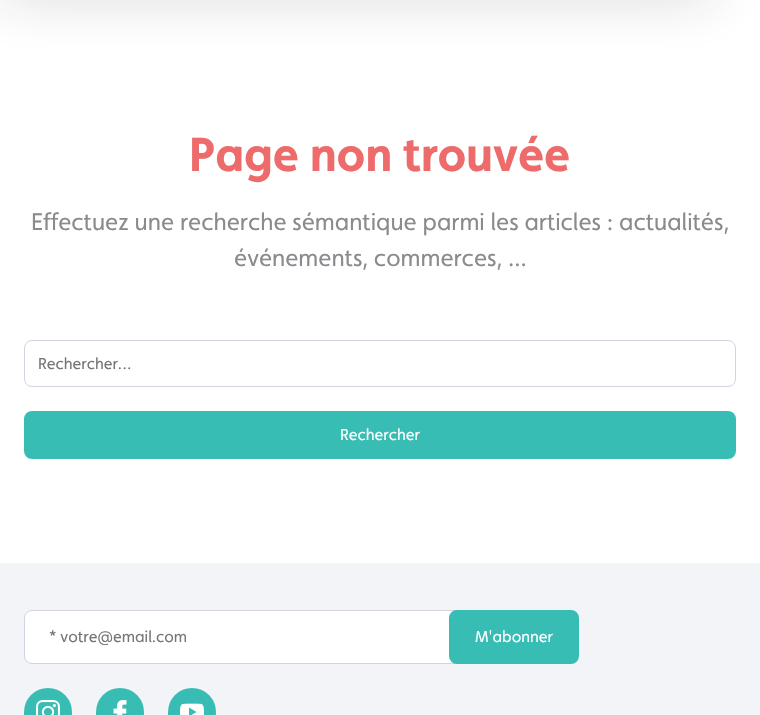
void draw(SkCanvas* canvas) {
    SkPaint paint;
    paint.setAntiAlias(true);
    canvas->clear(0xFFFFFFFF);
    paint.setColor(0x331D1D1E);
    paint.setMaskFilter(SkMaskFilter::MakeBlur(kNormal_SkBlurStyle, 30));
    canvas->drawRect(SkRect::MakeXYWH(0, -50, 712, 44), paint);
    paint.setMaskFilter(nullptr);
    SkFont font1(fontMgr->matchFamilyStyle("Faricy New", SkFontStyle::Bold()), 48);
    font1.setSubpixel(true);
    paint.setColor(0xFFED6B6A);
    canvas->drawString("Page non trouvée", 189, 171, font1, paint);
    SkFont font2(fontMgr->matchFamilyStyle("Faricy New", SkFontStyle::Normal()), 24);
    font2.setSubpixel(true);
    paint.setColor(0xFF8A8A8F);
    canvas->drawString("Effectuez une recherche sémantique parmi les articles : actualités,", 31, 230, font2, paint);
    canvas->drawString("événements, commerces, ...", 234, 266, font2, paint);
    paint.setStyle(SkPaint::kStroke_Style);
    paint.setStrokeWidth(1);
    paint.setColor(0xFFD2D4E0);
    canvas->drawRoundRect(SkRect::MakeXYWH(24.5f, 340.5f, 711, 46), 7.5f, 7.5f, paint);
    SkFont font3(fontMgr->matchFamilyStyle("Faricy New", SkFontStyle::Normal()), 16);
    font3.setSubpixel(true);
    paint.setStyle(SkPaint::kFill_Style);
    paint.setColor(0xFF757575);
    canvas->drawString("Rechercher…", 38, 369, font3, paint);
    paint.setColor(0xFF37BDB3);
    canvas->drawRoundRect(SkRect::MakeXYWH(25, 412, 710, 46), 7, 7, paint);
    paint.setStyle(SkPaint::kStroke_Style);
    paint.setStrokeWidth(2);
    canvas->drawRoundRect(SkRect::MakeXYWH(25, 412, 710, 46), 7, 7, paint);
    paint.setStyle(SkPaint::kFill_Style);
    paint.setColor(0xFFFFFFFF);
    canvas->drawString("Rechercher", 340, 440, font3, paint);
    paint.setColor(0xFFF3F4F8);
    canvas->drawRect(SkRect::MakeXYWH(0, 563, 760, 152), paint);
    paint.setColor(0xFFFFFFFF);
    canvas->drawRoundRect(SkRect::MakeXYWH(24.5f, 610.5f, 449, 53), 7.5f, 7.5f, paint);
    paint.setStyle(SkPaint::kStroke_Style);
    paint.setStrokeWidth(1);
    paint.setColor(0xFFD2D4E0);
    canvas->drawRoundRect(SkRect::MakeXYWH(24.5f, 610.5f, 449, 53), 7.5f, 7.5f, paint);
    paint.setStyle(SkPaint::kFill_Style);
    paint.setColor(0xFF757575);
    canvas->drawString("* votre@email.com", 49, 642, font3, paint);
    paint.setColor(0xFF37BDB3);
    canvas->drawRoundRect(SkRect::MakeXYWH(450, 611, 128, 52), 7, 7, paint);
    paint.setStyle(SkPaint::kStroke_Style);
    paint.setStrokeWidth(2);
    canvas->drawRoundRect(SkRect::MakeXYWH(450, 611, 128, 52), 7, 7, paint);
    paint.setStyle(SkPaint::kFill_Style);
    paint.setColor(0xFFFFFFFF);
    canvas->drawString("M'abonner", 475, 642, font3, paint);
    paint.setColor(0xFF37BDB3);
    canvas->drawCircle(48, 712, 24, paint);
    canvas->drawImageRect(SkImages::DeferredFromEncodedData(SkData::MakeFromFileName("img1.png")), SkRect::MakeXYWH(36, 700, 24, 15), SkSamplingOptions());
    canvas->drawCircle(120, 712, 24, paint);
    canvas->drawImageRect(SkImages::DeferredFromEncodedData(SkData::MakeFromFileName("img2.png")), SkRect::MakeXYWH(113, 700, 14, 15), SkSamplingOptions());
    canvas->drawCircle(192, 712, 24, paint);
    canvas->drawImageRect(SkImages::DeferredFromEncodedData(SkData::MakeFromFileName("img3.png")), SkRect::MakeXYWH(180, 703, 24, 12), SkSamplingOptions());
}
